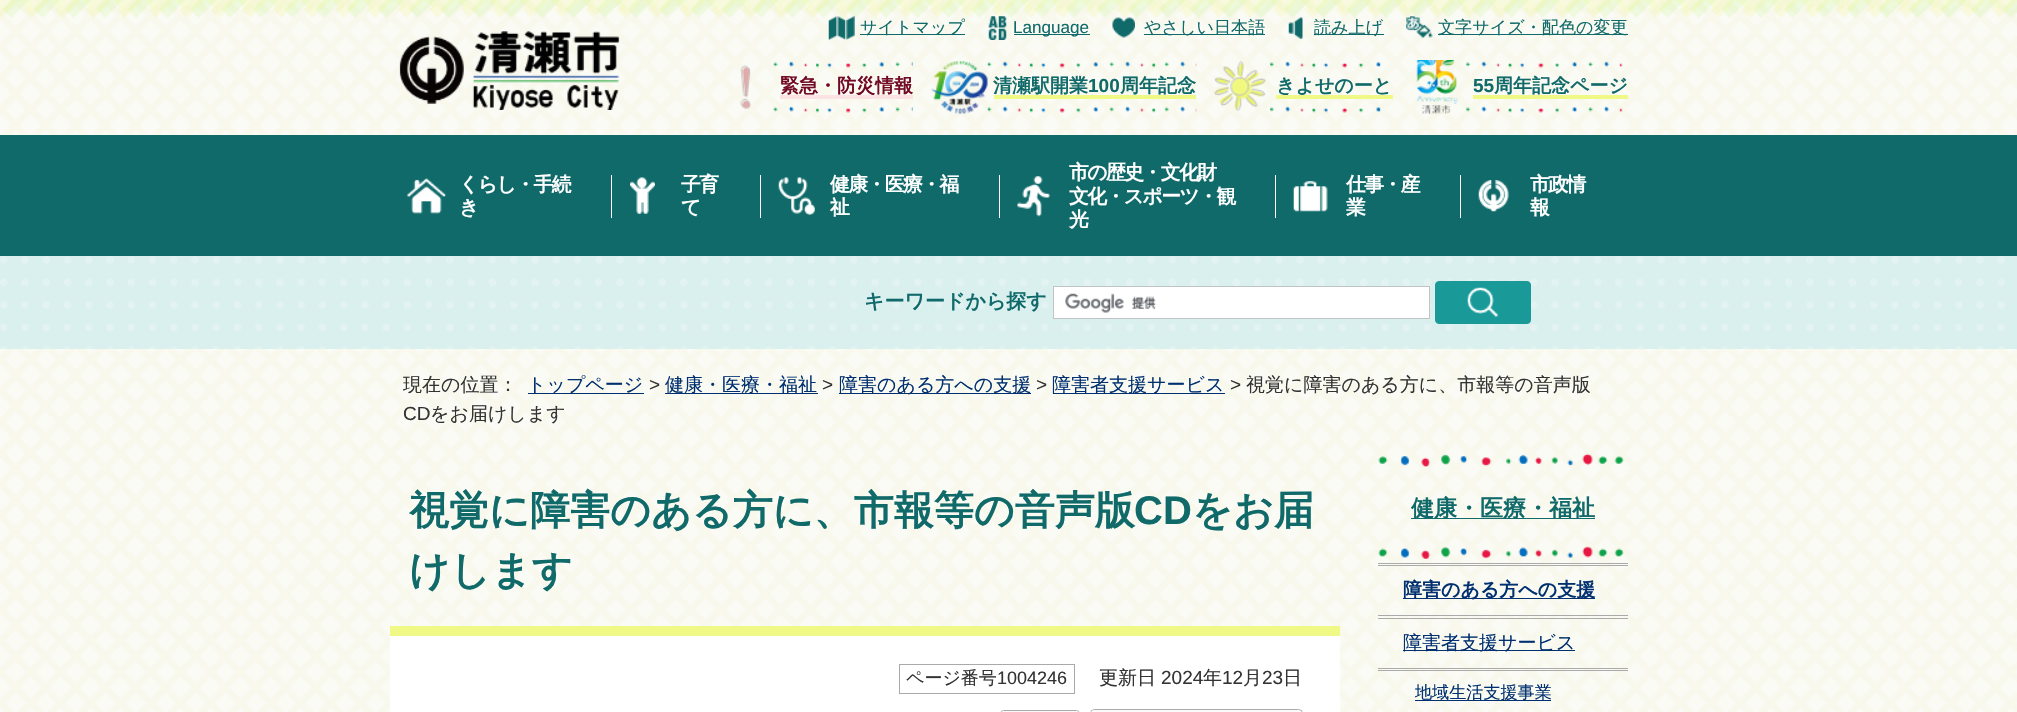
void draw(SkCanvas* canvas) {
    SkPaint paint;
    paint.setAntiAlias(true);
    auto spacedText = [&](const char* s, float x, float y, const SkFont& font, const SkPaint& ink, float letter, float word) {
        std::vector<SkGlyphID> glyphs(font.countText(s, strlen(s), SkTextEncoding::kUTF8));
        std::vector<float> xs(glyphs.size());
        font.textToGlyphs(s, strlen(s), SkTextEncoding::kUTF8, glyphs);
        font.getXPos(glyphs, xs, x);
        float extra = 0;
        for (size_t i = 0; i < glyphs.size(); i++) {
            xs[i] += extra;
            extra += letter + word * (glyphs[i] == font.unicharToGlyph(' '));
        }
        canvas->drawTextBlob(SkTextBlob::MakeFromPosHGlyphs(glyphs, xs, y, font), 0, 0, ink);
    };
    canvas->clear(0xFFFFFFFF);
    canvas->drawImageRect(SkImages::DeferredFromEncodedData(SkData::MakeFromFileName("img1.png")), SkRect::MakeXYWH(0, 0, 2017, 712), SkSamplingOptions());
    canvas->drawImageRect(SkImages::DeferredFromEncodedData(SkData::MakeFromFileName("img2.png")), SkRect::MakeXYWH(0, 0, 2017, 18), SkSamplingOptions());
    canvas->drawImageRect(SkImages::DeferredFromEncodedData(SkData::MakeFromFileName("img3.png")), SkRect::MakeXYWH(399, 31, 221, 79), SkSamplingOptions());
    canvas->drawImageRect(SkImages::DeferredFromEncodedData(SkData::MakeFromFileName("img4.png")), SkRect::MakeXYWH(828, 16, 27, 24), SkSamplingOptions());
    paint.setColor(0xFF116A6A);
    canvas->drawRect(SkRect::MakeXYWH(860, 34, 105, 1), paint);
    SkFont font1(fontMgr->matchFamilyStyle("WenQuanYi Zen Hei", SkFontStyle(500, SkFontStyle::kNormal_Width, SkFontStyle::kUpright_Slant)), 17.1f);
    font1.setSubpixel(true);
    canvas->drawString("サイトマップ", 860, 33, font1, paint);
    canvas->drawImageRect(SkImages::DeferredFromEncodedData(SkData::MakeFromFileName("img5.png")), SkRect::MakeXYWH(988, 16, 19, 24), SkSamplingOptions());
    canvas->drawRect(SkRect::MakeXYWH(1014, 34, 76, 1), paint);
    SkFont font2(fontMgr->matchFamilyStyle("Liberation Sans", SkFontStyle::Normal()), 17.1f);
    font2.setSubpixel(true);
    canvas->drawString("Language", 1013, 33, font2, paint);
    canvas->drawImageRect(SkImages::DeferredFromEncodedData(SkData::MakeFromFileName("img6.png")), SkRect::MakeXYWH(1112, 17, 23, 21), SkSamplingOptions());
    canvas->drawRect(SkRect::MakeXYWH(1144, 34, 121, 1), paint);
    canvas->drawString("やさしい日本語", 1144, 33, font1, paint);
    canvas->drawImageRect(SkImages::DeferredFromEncodedData(SkData::MakeFromFileName("img7.png")), SkRect::MakeXYWH(1288, 17, 15, 22), SkSamplingOptions());
    canvas->drawRect(SkRect::MakeXYWH(1314, 34, 70, 1), paint);
    canvas->drawString("読み上げ", 1314, 33, font1, paint);
    canvas->drawImageRect(SkImages::DeferredFromEncodedData(SkData::MakeFromFileName("img8.png")), SkRect::MakeXYWH(1406, 16, 27, 22), SkSamplingOptions());
    canvas->drawRect(SkRect::MakeXYWH(1438, 34, 190, 1), paint);
    canvas->drawString("文字サイズ・配色の変更", 1438, 33, font1, paint);
    canvas->drawImageRect(SkImages::DeferredFromEncodedData(SkData::MakeFromFileName("img9.png")), SkRect::MakeXYWH(740, 65, 12, 44), SkSamplingOptions());
    canvas->drawImageRect(SkImages::DeferredFromEncodedData(SkData::MakeFromFileName("img10.png")), SkRect::MakeXYWH(773, 61, 140, 7), SkSamplingOptions());
    SkFont font3(fontMgr->matchFamilyStyle("WenQuanYi Zen Hei", SkFontStyle::Bold()), 19);
    font3.setSubpixel(true);
    paint.setColor(0xFF720A26);
    canvas->drawString("緊急・防災情報", 780, 92, font3, paint);
    paint.setColor(0xFFFAE3E2);
    canvas->drawRect(SkRect::MakeXYWH(780, 95, 133, 4), paint);
    canvas->drawImageRect(SkImages::DeferredFromEncodedData(SkData::MakeFromFileName("img11.png")), SkRect::MakeXYWH(773, 106, 140, 7), SkSamplingOptions());
    canvas->drawImageRect(SkImages::DeferredFromEncodedData(SkData::MakeFromFileName("img12.png")), SkRect::MakeXYWH(931, 61, 57, 53), SkSamplingOptions());
    canvas->drawImageRect(SkImages::DeferredFromEncodedData(SkData::MakeFromFileName("img13.png")), SkRect::MakeXYWH(987, 61, 210, 7), SkSamplingOptions());
    paint.setColor(0xFF116A6A);
    canvas->drawString("清瀬駅開業", 993, 92, font3, paint);
    SkFont font4(fontMgr->matchFamilyStyle("Liberation Sans", SkFontStyle::Bold()), 19);
    font4.setSubpixel(true);
    canvas->drawString("100", 1088, 92, font4, paint);
    canvas->drawString("周年記念", 1120, 92, font3, paint);
    paint.setColor(0xFFF1F986);
    canvas->drawRect(SkRect::MakeXYWH(994, 95, 202, 4), paint);
    canvas->drawImageRect(SkImages::DeferredFromEncodedData(SkData::MakeFromFileName("img14.png")), SkRect::MakeXYWH(987, 106, 210, 7), SkSamplingOptions());
    canvas->drawImageRect(SkImages::DeferredFromEncodedData(SkData::MakeFromFileName("img15.png")), SkRect::MakeXYWH(1213, 61, 53, 51), SkSamplingOptions());
    canvas->drawImageRect(SkImages::DeferredFromEncodedData(SkData::MakeFromFileName("img16.png")), SkRect::MakeXYWH(1270, 61, 111, 7), SkSamplingOptions());
    paint.setColor(0xFF116A6A);
    canvas->drawString("きよせのーと", 1276, 92, font3, paint);
    paint.setColor(0xFFF1F986);
    canvas->drawRect(SkRect::MakeXYWH(1276, 95, 117, 4), paint);
    canvas->drawImageRect(SkImages::DeferredFromEncodedData(SkData::MakeFromFileName("img17.png")), SkRect::MakeXYWH(1270, 106, 111, 7), SkSamplingOptions());
    canvas->drawImageRect(SkImages::DeferredFromEncodedData(SkData::MakeFromFileName("img18.png")), SkRect::MakeXYWH(1416, 60, 42, 54), SkSamplingOptions());
    canvas->drawImageRect(SkImages::DeferredFromEncodedData(SkData::MakeFromFileName("img19.png")), SkRect::MakeXYWH(1466, 61, 157, 7), SkSamplingOptions());
    paint.setColor(0xFF116A6A);
    canvas->drawString("55", 1473, 92, font4, paint);
    canvas->drawString("周年記念ページ", 1494, 92, font3, paint);
    paint.setColor(0xFFF1F986);
    canvas->drawRect(SkRect::MakeXYWH(1473, 95, 155, 4), paint);
    canvas->drawImageRect(SkImages::DeferredFromEncodedData(SkData::MakeFromFileName("img20.png")), SkRect::MakeXYWH(1466, 106, 157, 7), SkSamplingOptions());
    paint.setColor(0xFF116A6A);
    canvas->drawRect(SkRect::MakeXYWH(0, 135, 2017, 121), paint);
    canvas->drawImageRect(SkImages::DeferredFromEncodedData(SkData::MakeFromFileName("img21.png")), SkRect::MakeXYWH(407, 178, 40, 36), SkSamplingOptions());
    SkFont font5(fontMgr->matchFamilyStyle("WenQuanYi Zen Hei", SkFontStyle::Bold()), 19.75f);
    font5.setSubpixel(true);
    paint.setColor(0xFFFFFFFF);
    spacedText("くらし・手続", 459, 191, font5, paint, -1.5f, 0);
    canvas->drawRect(SkRect::MakeXYWH(611, 175, 1, 43), paint);
    spacedText("き", 459, 214, font5, paint, -1.5f, 0);
    canvas->drawImageRect(SkImages::DeferredFromEncodedData(SkData::MakeFromFileName("img22.png")), SkRect::MakeXYWH(630, 177, 25, 37), SkSamplingOptions());
    spacedText("子育", 681, 191, font5, paint, -1.5f, 0);
    canvas->drawRect(SkRect::MakeXYWH(760, 175, 1, 43), paint);
    spacedText("て", 681, 214, font5, paint, -1.5f, 0);
    canvas->drawImageRect(SkImages::DeferredFromEncodedData(SkData::MakeFromFileName("img23.png")), SkRect::MakeXYWH(778, 177, 37, 38), SkSamplingOptions());
    spacedText("健康・医療・福", 830, 191, font5, paint, -1.5f, 0);
    canvas->drawRect(SkRect::MakeXYWH(999, 175, 1, 43), paint);
    spacedText("祉", 830, 214, font5, paint, -1.5f, 0);
    canvas->drawImageRect(SkImages::DeferredFromEncodedData(SkData::MakeFromFileName("img24.png")), SkRect::MakeXYWH(1017, 176, 33, 41), SkSamplingOptions());
    spacedText("市の歴史・文化財", 1069, 179, font5, paint, -1.5f, 0);
    spacedText("文化・スポーツ・観", 1069, 203, font5, paint, -1.5f, 0);
    canvas->drawRect(SkRect::MakeXYWH(1275, 175, 1, 43), paint);
    spacedText("光", 1069, 226, font5, paint, -1.5f, 0);
    canvas->drawImageRect(SkImages::DeferredFromEncodedData(SkData::MakeFromFileName("img25.png")), SkRect::MakeXYWH(1293, 181, 35, 31), SkSamplingOptions());
    spacedText("仕事・産", 1346, 191, font5, paint, -1.5f, 0);
    canvas->drawRect(SkRect::MakeXYWH(1460, 175, 1, 43), paint);
    spacedText("業", 1346, 214, font5, paint, -1.5f, 0);
    canvas->drawImageRect(SkImages::DeferredFromEncodedData(SkData::MakeFromFileName("img26.png")), SkRect::MakeXYWH(1478, 180, 31, 32), SkSamplingOptions());
    spacedText("市政情", 1530, 191, font5, paint, -1.5f, 0);
    spacedText("報", 1530, 214, font5, paint, -1.5f, 0);
    paint.setColor(0xFFD9F0EF);
    canvas->drawRect(SkRect::MakeXYWH(0, 256, 2017, 93), paint);
    canvas->drawImageRect(SkImages::DeferredFromEncodedData(SkData::MakeFromFileName("img27.png")), SkRect::MakeXYWH(0, 256, 2005, 93), SkSamplingOptions());
    SkFont font6(fontMgr->matchFamilyStyle("WenQuanYi Zen Hei", SkFontStyle::Bold()), 20);
    font6.setSubpixel(true);
    paint.setColor(0xFF116A6A);
    canvas->drawString("キーワードから探す", 864, 308, font6, paint);
    paint.setColor(0xFFFFFFFF);
    canvas->drawRect(SkRect::MakeXYWH(1054, 287, 375, 31), paint);
    canvas->drawImageRect(SkImages::DeferredFromEncodedData(SkData::MakeFromFileName("img28.png")), SkRect::MakeXYWH(1065, 293, 91, 20), SkSamplingOptions());
    paint.setStyle(SkPaint::kStroke_Style);
    paint.setStrokeWidth(1);
    paint.setColor(0xFFC3C3C3);
    canvas->drawRect(SkRect::MakeXYWH(1053.5f, 286.5f, 376, 32), paint);
    paint.setStyle(SkPaint::kFill_Style);
    paint.setColor(0xFF199A99);
    canvas->drawRoundRect(SkRect::MakeXYWH(1435.5f, 281.5f, 95, 42), 3.5f, 3.5f, paint);
    paint.setStyle(SkPaint::kStroke_Style);
    canvas->drawRoundRect(SkRect::MakeXYWH(1435.5f, 281.5f, 95, 42), 3.5f, 3.5f, paint);
    canvas->drawImageRect(SkImages::DeferredFromEncodedData(SkData::MakeFromFileName("img29.png")), SkRect::MakeXYWH(1467, 287, 32, 31), SkSamplingOptions());
    SkFont font7(fontMgr->matchFamilyStyle("WenQuanYi Zen Hei", SkFontStyle(500, SkFontStyle::kNormal_Width, SkFontStyle::kUpright_Slant)), 19);
    font7.setSubpixel(true);
    paint.setStyle(SkPaint::kFill_Style);
    paint.setColor(0xFF333333);
    canvas->drawString("現在の位置：", 403, 391, font7, paint);
    paint.setColor(0xFF003070);
    canvas->drawRect(SkRect::MakeXYWH(528, 393, 116, 1), paint);
    canvas->drawString("トップページ", 527, 391, font7, paint);
    SkFont font8(fontMgr->matchFamilyStyle("Liberation Sans", SkFontStyle::Normal()), 19);
    font8.setSubpixel(true);
    paint.setColor(0xFF333333);
    canvas->drawString(">", 649, 391, font8, paint);
    paint.setColor(0xFF003070);
    canvas->drawRect(SkRect::MakeXYWH(665, 393, 153, 1), paint);
    canvas->drawString("健康・医療・福祉", 665, 391, font7, paint);
    paint.setColor(0xFF333333);
    canvas->drawString(">", 822, 391, font8, paint);
    paint.setColor(0xFF003070);
    canvas->drawRect(SkRect::MakeXYWH(839, 393, 192, 1), paint);
    canvas->drawString("障害のある方への支援", 839, 391, font7, paint);
    paint.setColor(0xFF333333);
    canvas->drawString(">", 1036, 391, font8, paint);
    paint.setColor(0xFF003070);
    canvas->drawRect(SkRect::MakeXYWH(1053, 393, 172, 1), paint);
    canvas->drawString("障害者支援サービス", 1052, 391, font7, paint);
    paint.setColor(0xFF333333);
    canvas->drawString(">", 1230, 391, font8, paint);
    canvas->drawString("視覚に障害のある方に、市報等の音声版", 1246, 391, font7, paint);
    canvas->drawString("CD", 403, 420, font8, paint);
    canvas->drawString("をお届けします", 430, 420, font7, paint);
    paint.setColor(0xFFF1F986);
    canvas->drawRect(SkRect::MakeXYWH(390, 626, 950, 10), paint);
    SkFont font9(fontMgr->matchFamilyStyle("WenQuanYi Zen Hei", SkFontStyle::Bold()), 40);
    font9.setSubpixel(true);
    paint.setColor(0xFF116A6A);
    canvas->drawString("視覚に障害のある方に、市報等の音声版", 409, 524, font9, paint);
    SkFont font10(fontMgr->matchFamilyStyle("Liberation Sans", SkFontStyle::Bold()), 40);
    font10.setSubpixel(true);
    canvas->drawString("CD", 1134, 524, font10, paint);
    canvas->drawString("をお届", 1192, 524, font9, paint);
    canvas->drawString("けします", 409, 584, font9, paint);
    paint.setColor(0xFFFFFFFF);
    canvas->drawRect(SkRect::MakeXYWH(390, 636, 950, 76), paint);
    paint.setStyle(SkPaint::kStroke_Style);
    paint.setColor(0xFFAAAAAA);
    canvas->drawRect(SkRect::MakeXYWH(899.5f, 664.5f, 175, 29), paint);
    SkFont font11(fontMgr->matchFamilyStyle("WenQuanYi Zen Hei", SkFontStyle(500, SkFontStyle::kNormal_Width, SkFontStyle::kUpright_Slant)), 18);
    font11.setSubpixel(true);
    paint.setStyle(SkPaint::kFill_Style);
    paint.setColor(0xFF333333);
    canvas->drawString("ページ番号", 906, 684, font11, paint);
    SkFont font12(fontMgr->matchFamilyStyle("Liberation Sans", SkFontStyle::Normal()), 18);
    font12.setSubpixel(true);
    canvas->drawString("1004246", 997, 684, font12, paint);
    canvas->drawString("更新日", 1099, 684, font7, paint);
    canvas->drawString("2024", 1161, 684, font8, paint);
    canvas->drawString("年", 1203, 684, font7, paint);
    canvas->drawString("12", 1222, 684, font8, paint);
    canvas->drawString("月", 1243, 684, font7, paint);
    canvas->drawString("23", 1262, 684, font8, paint);
    canvas->drawString("日", 1283, 684, font7, paint);
    paint.setStyle(SkPaint::kStroke_Style);
    paint.setColor(0xFFAAAAAA);
    canvas->drawRoundRect(SkRect::MakeXYWH(1000.5f, 710.5f, 79, 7), 4.5f, 4.5f, paint);
    paint.setStyle(SkPaint::kFill_Style);
    paint.setColor(0xFFFAFAFA);
    canvas->drawRoundRect(SkRect::MakeXYWH(1001, 711, 78, 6), 5, 5, paint);
    paint.setStyle(SkPaint::kStroke_Style);
    paint.setColor(0xFFAAAAAA);
    canvas->drawRoundRect(SkRect::MakeXYWH(1090.5f, 709.5f, 212, 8), 4.5f, 4.5f, paint);
    paint.setStyle(SkPaint::kFill_Style);
    paint.setColor(0xFFFAFAFA);
    canvas->drawRoundRect(SkRect::MakeXYWH(1091, 710, 210, 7), 5, 5, paint);
    canvas->drawImageRect(SkImages::DeferredFromEncodedData(SkData::MakeFromFileName("img30.png")), SkRect::MakeXYWH(1378, 453, 246, 106), SkSamplingOptions());
    paint.setColor(0xFF116A6A);
    canvas->drawRect(SkRect::MakeXYWH(1411, 518, 184, 1), paint);
    SkFont font13(fontMgr->matchFamilyStyle("WenQuanYi Zen Hei", SkFontStyle::Bold()), 23);
    font13.setSubpixel(true);
    canvas->drawString("健康・医療・福祉", 1411, 516, font13, paint);
    paint.setColor(0xFFAAAAAA);
    canvas->drawRect(SkRect::MakeXYWH(1378, 563, 250, 1), paint);
    canvas->drawRect(SkRect::MakeXYWH(1378, 565, 250, 1), paint);
    canvas->drawRect(SkRect::MakeXYWH(1378, 615, 250, 1), paint);
    canvas->drawRect(SkRect::MakeXYWH(1378, 618, 250, 1), paint);
    paint.setColor(0xFF003070);
    canvas->drawRect(SkRect::MakeXYWH(1403, 598, 192, 1), paint);
    canvas->drawString("障害のある方への支援", 1403, 596, font3, paint);
    paint.setColor(0xFFAAAAAA);
    canvas->drawRect(SkRect::MakeXYWH(1378, 668, 250, 1), paint);
    canvas->drawRect(SkRect::MakeXYWH(1378, 670, 250, 1), paint);
    paint.setColor(0xFF003070);
    canvas->drawRect(SkRect::MakeXYWH(1403, 650, 172, 1), paint);
    canvas->drawString("障害者支援サービス", 1403, 649, font7, paint);
    canvas->drawRect(SkRect::MakeXYWH(1415, 700, 136, 1), paint);
    canvas->drawString("地域生活支援事業", 1415, 698, font1, paint);
}
